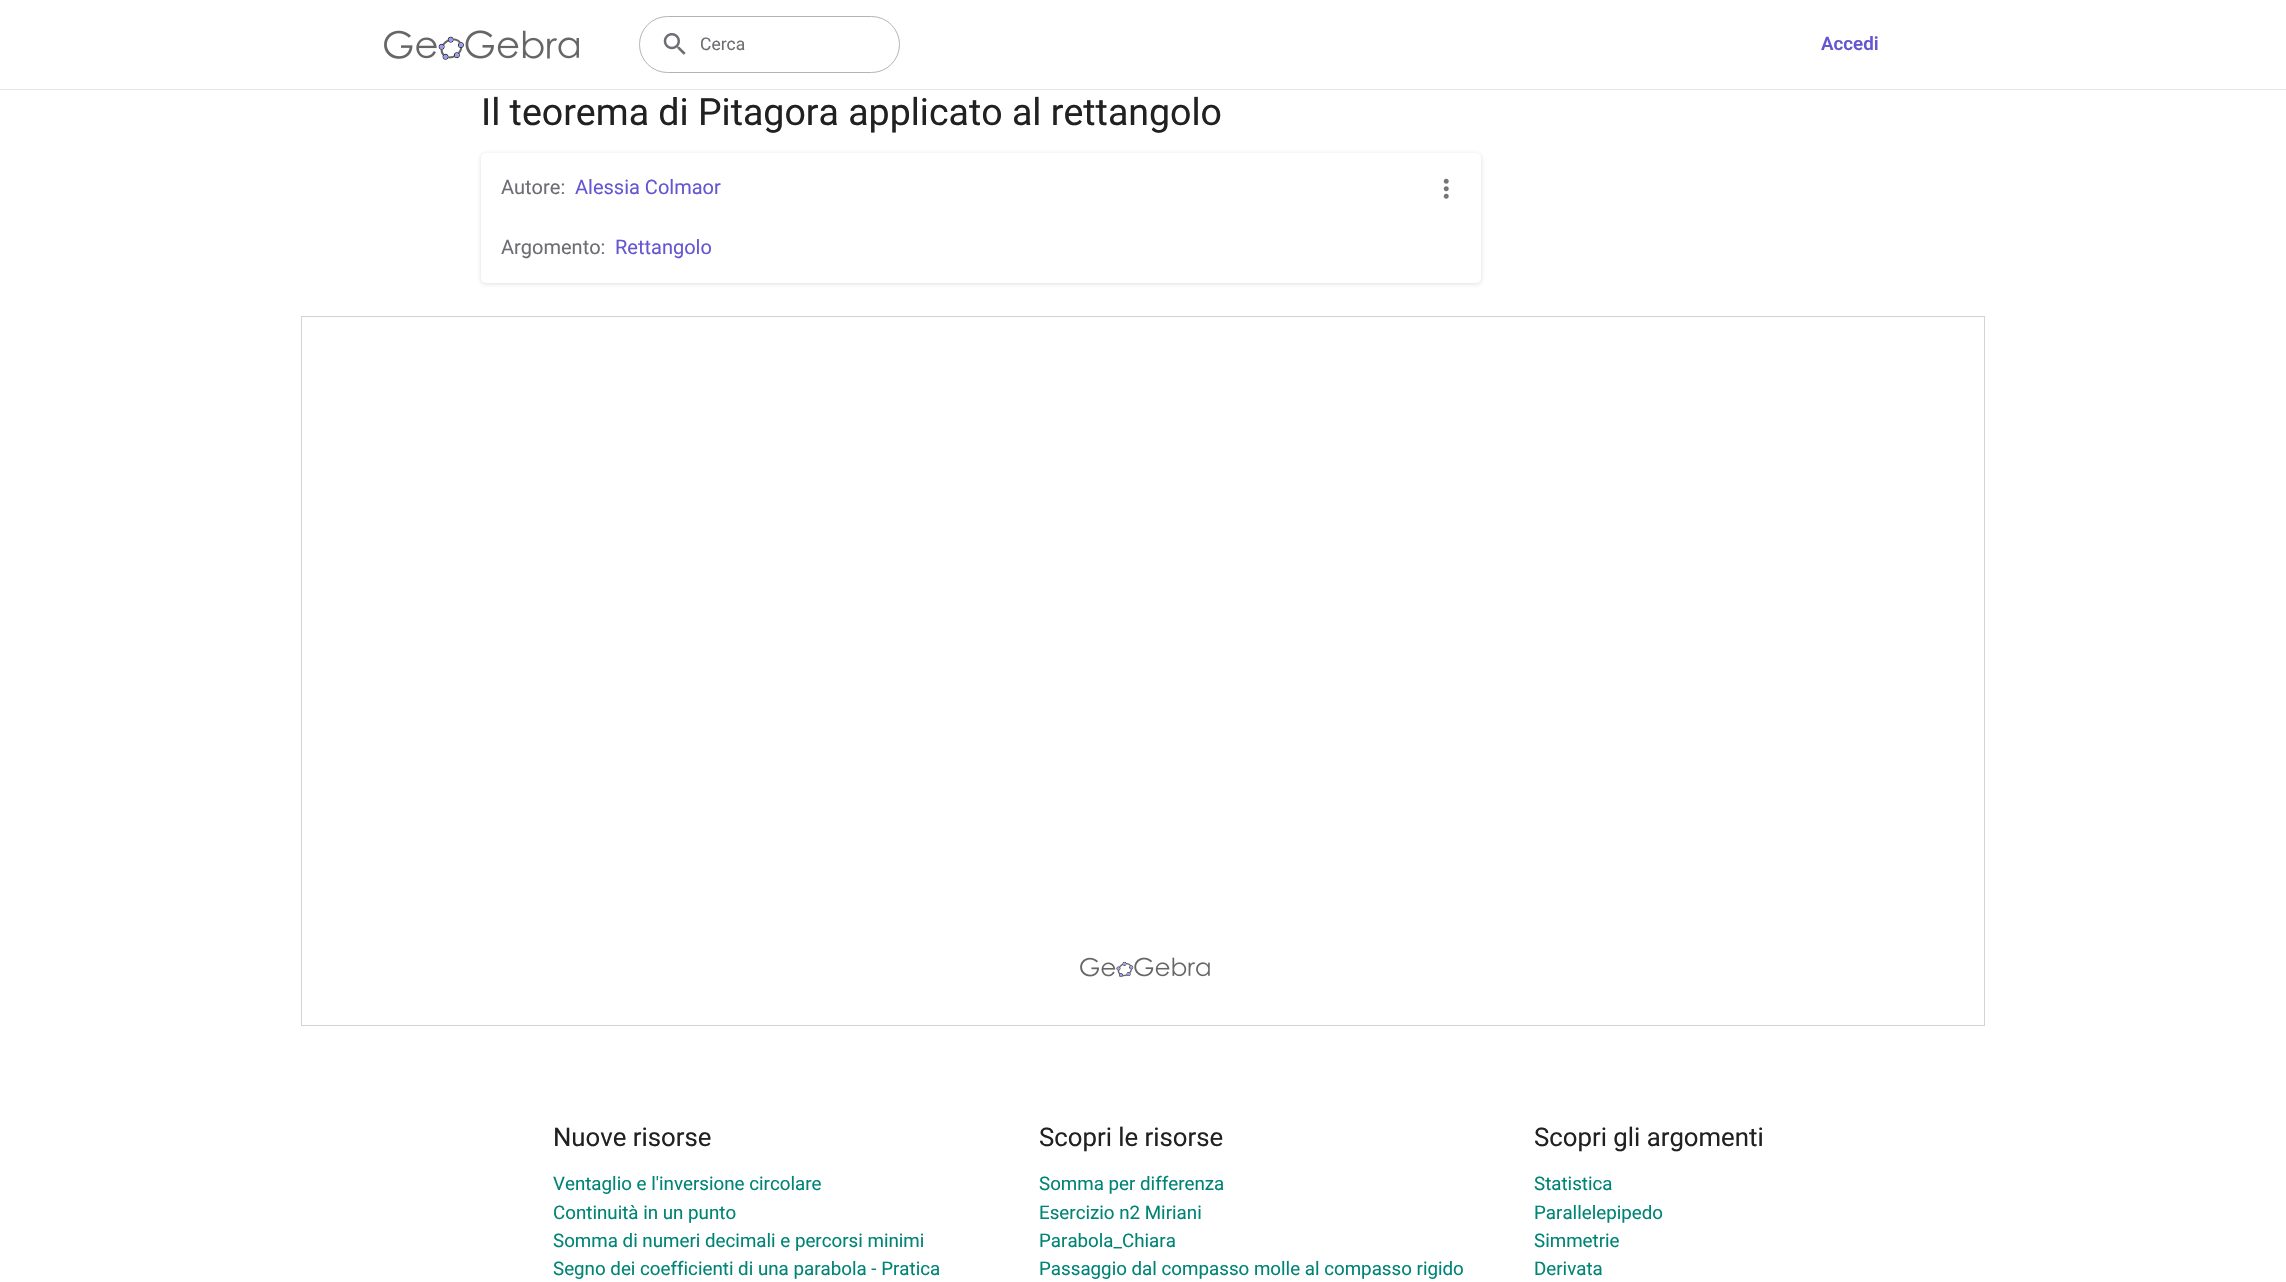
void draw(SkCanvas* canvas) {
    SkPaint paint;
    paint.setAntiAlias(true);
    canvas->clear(0xFFFFFFFF);
    paint.setColor(0xFFE6E6EB);
    canvas->drawRect(SkRect::MakeXYWH(0, 89, 2286, 1), paint);
    canvas->drawImageRect(SkImages::DeferredFromEncodedData(SkData::MakeFromFileName("img1.png")), SkRect::MakeXYWH(384, 30, 195, 30), SkSamplingOptions());
    paint.setStyle(SkPaint::kStroke_Style);
    paint.setStrokeWidth(1);
    paint.setColor(0xFFB4B3BA);
    canvas->drawRoundRect(SkRect::MakeXYWH(639.5f, 16.5f, 260, 56), 28, 28, paint);
    canvas->drawImageRect(SkImages::DeferredFromEncodedData(SkData::MakeFromFileName("img2.png")), SkRect::MakeXYWH(663, 33, 23, 22), SkSamplingOptions());
    SkFont font1(fontMgr->matchFamilyStyle("Roboto", SkFontStyle::Normal()), 17.5f);
    font1.setSubpixel(true);
    paint.setStyle(SkPaint::kFill_Style);
    paint.setColor(0xFF6E6D73);
    canvas->drawString("Cerca", 700, 50, font1, paint);
    SkFont font2(fontMgr->matchFamilyStyle("Roboto", SkFontStyle(600, SkFontStyle::kNormal_Width, SkFontStyle::kUpright_Slant)), 18.75f);
    font2.setSubpixel(true);
    paint.setColor(0xFF6557D2);
    canvas->drawString("Accedi", 1821, 50, font2, paint);
    SkFont font3(fontMgr->matchFamilyStyle("Roboto", SkFontStyle::Normal()), 37.5f);
    font3.setSubpixel(true);
    paint.setColor(0xFF212121);
    canvas->drawString("Il teorema di Pitagora applicato al rettangolo", 481, 125, font3, paint);
    paint.setColor(0x241C1C1F);
    paint.setMaskFilter(SkMaskFilter::MakeBlur(kNormal_SkBlurStyle, 2.5f));
    canvas->drawRoundRect(SkRect::MakeXYWH(481, 154, 1000, 130), 5, 5, paint);
    paint.setMaskFilter(nullptr);
    paint.setColor(0xFFFFFFFF);
    canvas->drawRoundRect(SkRect::MakeXYWH(481, 153, 1000, 130), 5, 5, paint);
    SkFont font4(fontMgr->matchFamilyStyle("Roboto", SkFontStyle::Normal()), 20);
    font4.setSubpixel(true);
    paint.setColor(0xFF6E6D73);
    canvas->drawString("Autore:", 501, 194, font4, paint);
    paint.setColor(0xFF6557D2);
    canvas->drawString("Alessia Colmaor", 575, 194, font4, paint);
    paint.setColor(0xFF6E6D73);
    canvas->drawString("Argomento:", 501, 254, font4, paint);
    paint.setColor(0xFF6557D2);
    canvas->drawString("Rettangolo", 615, 254, font4, paint);
    canvas->drawImageRect(SkImages::DeferredFromEncodedData(SkData::MakeFromFileName("img3.png")), SkRect::MakeXYWH(1443, 178, 6, 21), SkSamplingOptions());
    canvas->drawImageRect(SkImages::DeferredFromEncodedData(SkData::MakeFromFileName("img4.png")), SkRect::MakeXYWH(1080, 957, 130, 21), SkSamplingOptions());
    paint.setStyle(SkPaint::kStroke_Style);
    paint.setColor(0xFFD3D3D3);
    canvas->drawRect(SkRect::MakeXYWH(301.5f, 316.5f, 1683, 709), paint);
    SkFont font5(fontMgr->matchFamilyStyle("Roboto", SkFontStyle::Normal()), 25.75f);
    font5.setSubpixel(true);
    paint.setStyle(SkPaint::kFill_Style);
    paint.setColor(0xFF212121);
    canvas->drawString("Nuove risorse", 553, 1146, font5, paint);
    SkFont font6(fontMgr->matchFamilyStyle("Roboto", SkFontStyle::Normal()), 18.75f);
    font6.setSubpixel(true);
    paint.setColor(0xFF008475);
    canvas->drawString("Ventaglio e l'inversione circolare", 553, 1190, font6, paint);
    canvas->drawString("Continuità in un punto", 553, 1219, font6, paint);
    canvas->drawString("Somma di numeri decimali e percorsi minimi", 553, 1247, font6, paint);
    canvas->drawString("Segno dei coefficienti di una parabola - Pratica", 553, 1275, font6, paint);
    paint.setColor(0xFF212121);
    canvas->drawString("Scopri le risorse", 1039, 1146, font5, paint);
    paint.setColor(0xFF008475);
    canvas->drawString("Somma per differenza", 1039, 1190, font6, paint);
    canvas->drawString("Esercizio n2 Miriani", 1039, 1219, font6, paint);
    canvas->drawString("Parabola_Chiara", 1039, 1247, font6, paint);
    canvas->drawString("Passaggio dal compasso molle al compasso rigido", 1039, 1275, font6, paint);
    paint.setColor(0xFF212121);
    canvas->drawString("Scopri gli argomenti", 1534, 1146, font5, paint);
    paint.setColor(0xFF008475);
    canvas->drawString("Statistica", 1534, 1190, font6, paint);
    canvas->drawString("Parallelepipedo", 1534, 1219, font6, paint);
    canvas->drawString("Simmetrie", 1534, 1247, font6, paint);
    canvas->drawString("Derivata", 1534, 1275, font6, paint);
}
